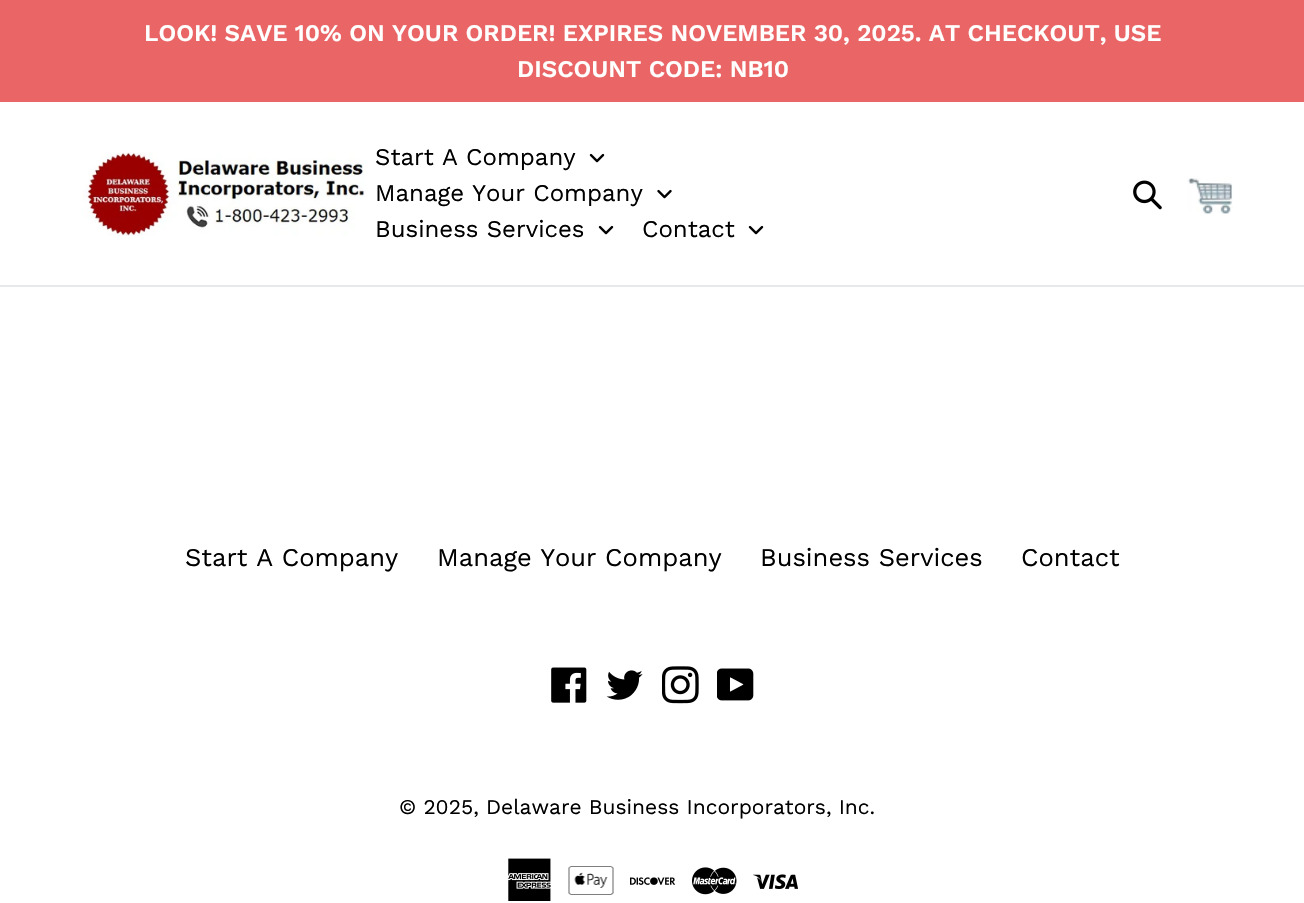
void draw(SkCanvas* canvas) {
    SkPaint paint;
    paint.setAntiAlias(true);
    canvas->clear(0xFFFFFFFF);
    paint.setColor(0xFFEA6666);
    canvas->drawRect(SkRect::MakeXYWH(0, 0, 1304, 102), paint);
    SkFont font1(fontMgr->matchFamilyStyle("Work Sans", SkFontStyle(600, SkFontStyle::kNormal_Width, SkFontStyle::kUpright_Slant)), 24);
    font1.setSubpixel(true);
    paint.setColor(0xFFFFFFFF);
    canvas->drawString("LOOK! SAVE 10% ON YOUR ORDER! EXPIRES NOVEMBER 30, 2025. AT CHECKOUT, USE", 144, 41, font1, paint);
    canvas->drawString("DISCOUNT CODE: NB10", 517, 77, font1, paint);
    paint.setColor(0xFFE8E9EB);
    canvas->drawRect(SkRect::MakeXYWH(0, 285, 1304, 2), paint);
    canvas->drawImageRect(SkImages::DeferredFromEncodedData(SkData::MakeFromFileName("img1.png")), SkRect::MakeXYWH(82, 152, 285, 84), SkSamplingOptions());
    SkFont font2(fontMgr->matchFamilyStyle("Work Sans", SkFontStyle::Normal()), 24);
    font2.setSubpixel(true);
    paint.setColor(0xFF000000);
    canvas->drawString("Start A Company", 375, 165, font2, paint);
    canvas->drawImageRect(SkImages::DeferredFromEncodedData(SkData::MakeFromFileName("img2.png")), SkRect::MakeXYWH(589, 153, 16, 10), SkSamplingOptions());
    canvas->drawString("Manage Your Company", 375, 201, font2, paint);
    canvas->drawImageRect(SkImages::DeferredFromEncodedData(SkData::MakeFromFileName("img3.png")), SkRect::MakeXYWH(657, 189, 15, 10), SkSamplingOptions());
    canvas->drawString("Business Services", 375, 237, font2, paint);
    canvas->drawImageRect(SkImages::DeferredFromEncodedData(SkData::MakeFromFileName("img2.png")), SkRect::MakeXYWH(598, 225, 16, 10), SkSamplingOptions());
    canvas->drawString("Contact", 642, 237, font2, paint);
    canvas->drawImageRect(SkImages::DeferredFromEncodedData(SkData::MakeFromFileName("img2.png")), SkRect::MakeXYWH(748, 225, 16, 10), SkSamplingOptions());
    canvas->drawImageRect(SkImages::DeferredFromEncodedData(SkData::MakeFromFileName("img4.png")), SkRect::MakeXYWH(1133, 180, 29, 30), SkSamplingOptions());
    canvas->drawImageRect(SkImages::DeferredFromEncodedData(SkData::MakeFromFileName("img5.png")), SkRect::MakeXYWH(1187, 178, 46, 36), SkSamplingOptions());
    SkFont font3(fontMgr->matchFamilyStyle("Work Sans", SkFontStyle::Normal()), 25.5f);
    font3.setSubpixel(true);
    canvas->drawString("Start A Company", 185, 566, font3, paint);
    canvas->drawString("Manage Your Company", 437, 566, font3, paint);
    canvas->drawString("Business Services", 760, 566, font3, paint);
    canvas->drawString("Contact", 1021, 566, font3, paint);
    canvas->drawImageRect(SkImages::DeferredFromEncodedData(SkData::MakeFromFileName("img6.png")), SkRect::MakeXYWH(551, 667, 36, 36), SkSamplingOptions());
    canvas->drawImageRect(SkImages::DeferredFromEncodedData(SkData::MakeFromFileName("img7.png")), SkRect::MakeXYWH(606, 670, 37, 30), SkSamplingOptions());
    canvas->drawImageRect(SkImages::DeferredFromEncodedData(SkData::MakeFromFileName("img8.png")), SkRect::MakeXYWH(662, 666, 37, 38), SkSamplingOptions());
    canvas->drawImageRect(SkImages::DeferredFromEncodedData(SkData::MakeFromFileName("img9.png")), SkRect::MakeXYWH(717, 668, 37, 33), SkSamplingOptions());
    SkFont font4(fontMgr->matchFamilyStyle("Work Sans", SkFontStyle::Normal()), 21);
    font4.setSubpixel(true);
    canvas->drawString("© 2025, Delaware Business Incorporators, Inc.", 399, 814, font4, paint);
    canvas->drawImageRect(SkImages::DeferredFromEncodedData(SkData::MakeFromFileName("img10.png")), SkRect::MakeXYWH(508, 858, 43, 43), SkSamplingOptions());
    canvas->drawImageRect(SkImages::DeferredFromEncodedData(SkData::MakeFromFileName("img11.png")), SkRect::MakeXYWH(568, 866, 46, 29), SkSamplingOptions());
    canvas->drawImageRect(SkImages::DeferredFromEncodedData(SkData::MakeFromFileName("img12.png")), SkRect::MakeXYWH(630, 877, 45, 8), SkSamplingOptions());
    canvas->drawImageRect(SkImages::DeferredFromEncodedData(SkData::MakeFromFileName("img13.png")), SkRect::MakeXYWH(692, 867, 45, 28), SkSamplingOptions());
    canvas->drawImageRect(SkImages::DeferredFromEncodedData(SkData::MakeFromFileName("img14.png")), SkRect::MakeXYWH(753, 874, 45, 15), SkSamplingOptions());
}
